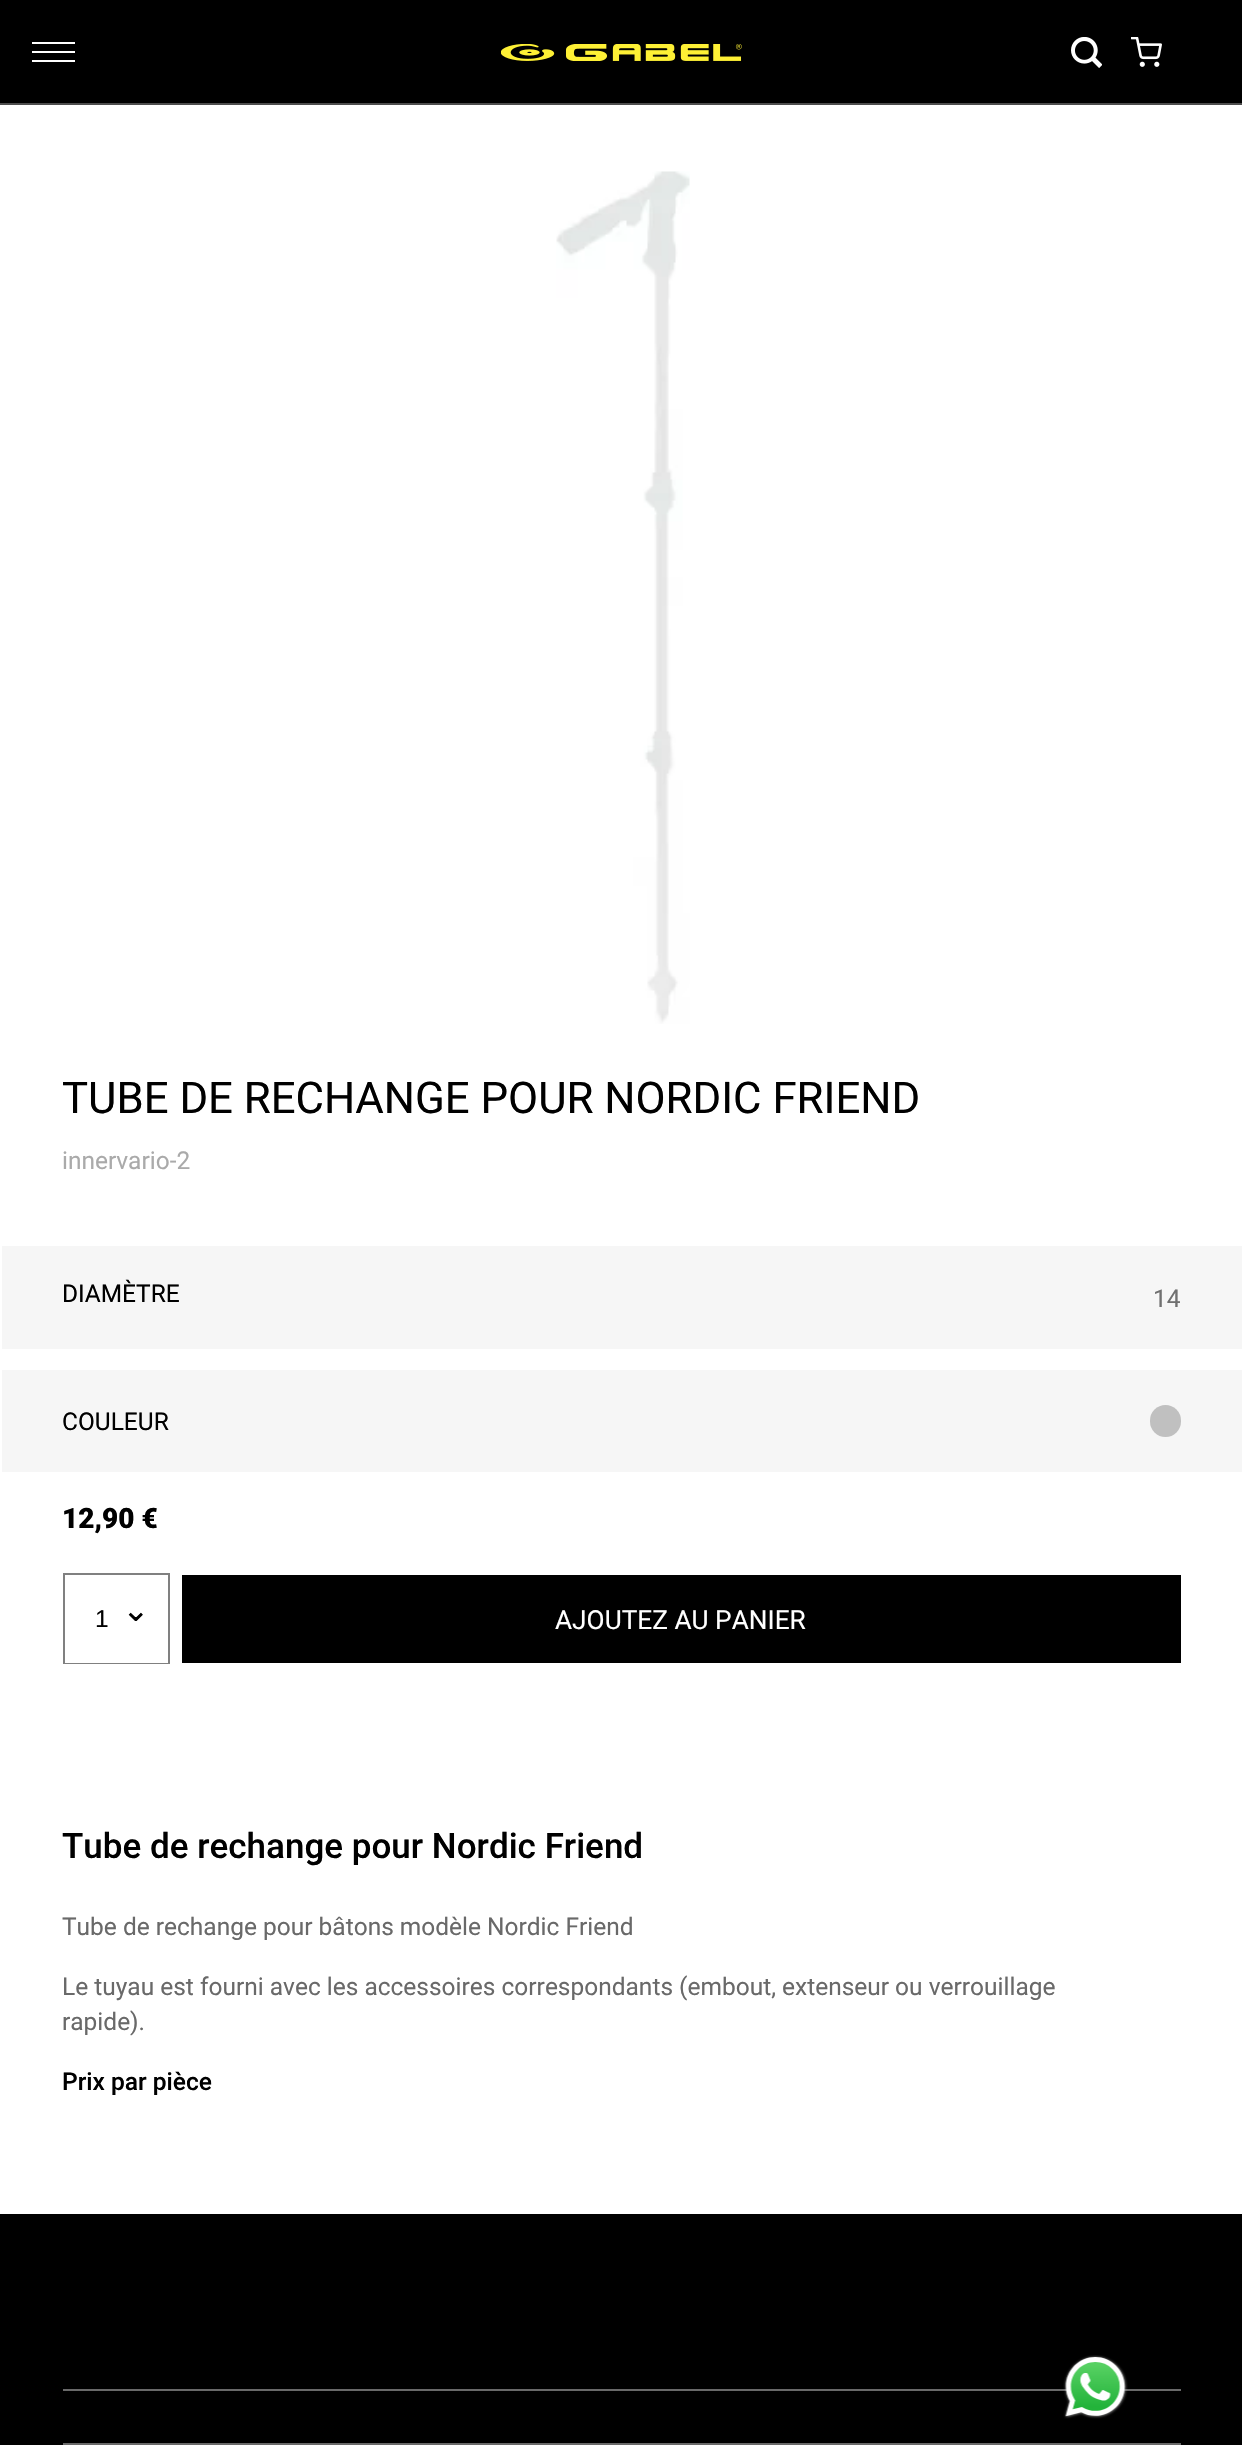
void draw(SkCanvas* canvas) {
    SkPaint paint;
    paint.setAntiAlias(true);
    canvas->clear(0xFFFFFFFF);
    paint.setColor(0xFF000000);
    canvas->drawRect(SkRect::MakeXYWH(0, 0, 1242, 103), paint);
    paint.setColor(0xFF4D4D4D);
    canvas->drawRect(SkRect::MakeXYWH(0, 103, 1242, 2), paint);
    paint.setColor(0xFFFFFFFF);
    canvas->drawRect(SkRect::MakeXYWH(32, 42, 43, 2), paint);
    canvas->drawRect(SkRect::MakeXYWH(32, 51, 43, 2), paint);
    canvas->drawRect(SkRect::MakeXYWH(32, 60, 43, 2), paint);
    canvas->drawImageRect(SkImages::DeferredFromEncodedData(SkData::MakeFromFileName("img1.png")), SkRect::MakeXYWH(501, 44, 241, 17), SkSamplingOptions());
    canvas->drawImageRect(SkImages::DeferredFromEncodedData(SkData::MakeFromFileName("img2.png")), SkRect::MakeXYWH(1071, 37, 31, 31), SkSamplingOptions());
    canvas->drawImageRect(SkImages::DeferredFromEncodedData(SkData::MakeFromFileName("img3.png")), SkRect::MakeXYWH(1131, 37, 31, 30), SkSamplingOptions());
    canvas->drawImageRect(SkImages::DeferredFromEncodedData(SkData::MakeFromFileName("img4.png")), SkRect::MakeXYWH(556, 171, 134, 853), SkSamplingOptions());
    SkFont font1(fontMgr->matchFamilyStyle("Roboto", SkFontStyle::Normal()), 43.75f);
    font1.setSubpixel(true);
    paint.setColor(0xFF000000);
    canvas->drawString("TUBE DE RECHANGE POUR NORDIC FRIEND", 62, 1113, font1, paint);
    SkFont font2(fontMgr->matchFamilyStyle("Roboto", SkFontStyle::Normal()), 24.5f);
    font2.setSubpixel(true);
    paint.setColor(0xFFAAAAAA);
    canvas->drawString("innervario-2", 62, 1169, font2, paint);
    paint.setColor(0xFFF6F6F6);
    canvas->drawRect(SkRect::MakeXYWH(2, 1246, 1240, 103), paint);
    paint.setColor(0xFF000000);
    canvas->drawString("DIAMÈTRE", 62, 1302, font2, paint);
    paint.setColor(0xFF707070);
    canvas->drawString("14", 1153, 1307, font2, paint);
    paint.setColor(0xFFF6F6F6);
    canvas->drawRect(SkRect::MakeXYWH(2, 1370, 1240, 102), paint);
    paint.setColor(0xFF000000);
    canvas->drawString("COULEUR", 62, 1430, font2, paint);
    paint.setColor(0xFFC0C0C0);
    canvas->drawRoundRect(SkRect::MakeXYWH(1150, 1405, 31, 32), 15.5f, 15.5f, paint);
    SkFont font3(fontMgr->matchFamilyStyle("Roboto", SkFontStyle(900, SkFontStyle::kNormal_Width, SkFontStyle::kUpright_Slant)), 28);
    font3.setSubpixel(true);
    paint.setColor(0xFF000000);
    canvas->drawString("12,90 €", 62, 1528, font3, paint);
    paint.setStyle(SkPaint::kStroke_Style);
    paint.setStrokeWidth(2);
    paint.setColor(0xFF808080);
    canvas->drawRect(SkRect::MakeXYWH(64, 1574, 105, 89), paint);
    paint.setStyle(SkPaint::kFill_Style);
    paint.setColor(0xFFFFFFFF);
    canvas->drawRect(SkRect::MakeXYWH(65, 1662, 103, 1), paint);
    SkFont font4(fontMgr->matchFamilyStyle("Liberation Sans", SkFontStyle::Normal()), 24.5f);
    font4.setSubpixel(true);
    paint.setColor(0xFF000000);
    canvas->drawString("1", 95, 1627, font4, paint);
    SkFont font5(fontMgr->matchFamilyStyle("DejaVu Sans", SkFontStyle::Normal()), 33);
    font5.setSubpixel(true);
    canvas->drawString("⌄", 122, 1621, font5, paint);
    canvas->drawRect(SkRect::MakeXYWH(182, 1575, 999, 88), paint);
    SkFont font6(fontMgr->matchFamilyStyle("Roboto", SkFontStyle::Normal()), 26.25f);
    font6.setSubpixel(true);
    paint.setColor(0xFFFFFFFF);
    canvas->drawString("AJOUTEZ AU PANIER", 555, 1629, font6, paint);
    SkFont font7(fontMgr->matchFamilyStyle("Roboto", SkFontStyle(500, SkFontStyle::kNormal_Width, SkFontStyle::kUpright_Slant)), 35);
    font7.setSubpixel(true);
    paint.setColor(0xFF000000);
    canvas->drawString("Tube de rechange pour Nordic Friend", 62, 1858, font7, paint);
    paint.setColor(0xFF696969);
    canvas->drawString("Tube de rechange pour bâtons modèle Nordic Friend", 62, 1935, font2, paint);
    canvas->drawString("Le tuyau est fourni avec les accessoires correspondants (embout, extenseur ou verrouillage", 62, 1995, font2, paint);
    canvas->drawString("rapide).", 62, 2030, font2, paint);
    SkFont font8(fontMgr->matchFamilyStyle("Roboto", SkFontStyle(500, SkFontStyle::kNormal_Width, SkFontStyle::kUpright_Slant)), 24.5f);
    font8.setSubpixel(true);
    paint.setColor(0xFF000000);
    canvas->drawString("Prix par pièce", 62, 2090, font8, paint);
    canvas->drawRect(SkRect::MakeXYWH(0, 2214, 1242, 231), paint);
    paint.setColor(0xFF696969);
    canvas->drawRect(SkRect::MakeXYWH(63, 2389, 1118, 2), paint);
    canvas->drawImageRect(SkImages::DeferredFromEncodedData(SkData::MakeFromFileName("img5.png")), SkRect::MakeXYWH(1063, 2355, 65, 64), SkSamplingOptions());
    canvas->drawRect(SkRect::MakeXYWH(63, 2443, 1118, 2), paint);
}
